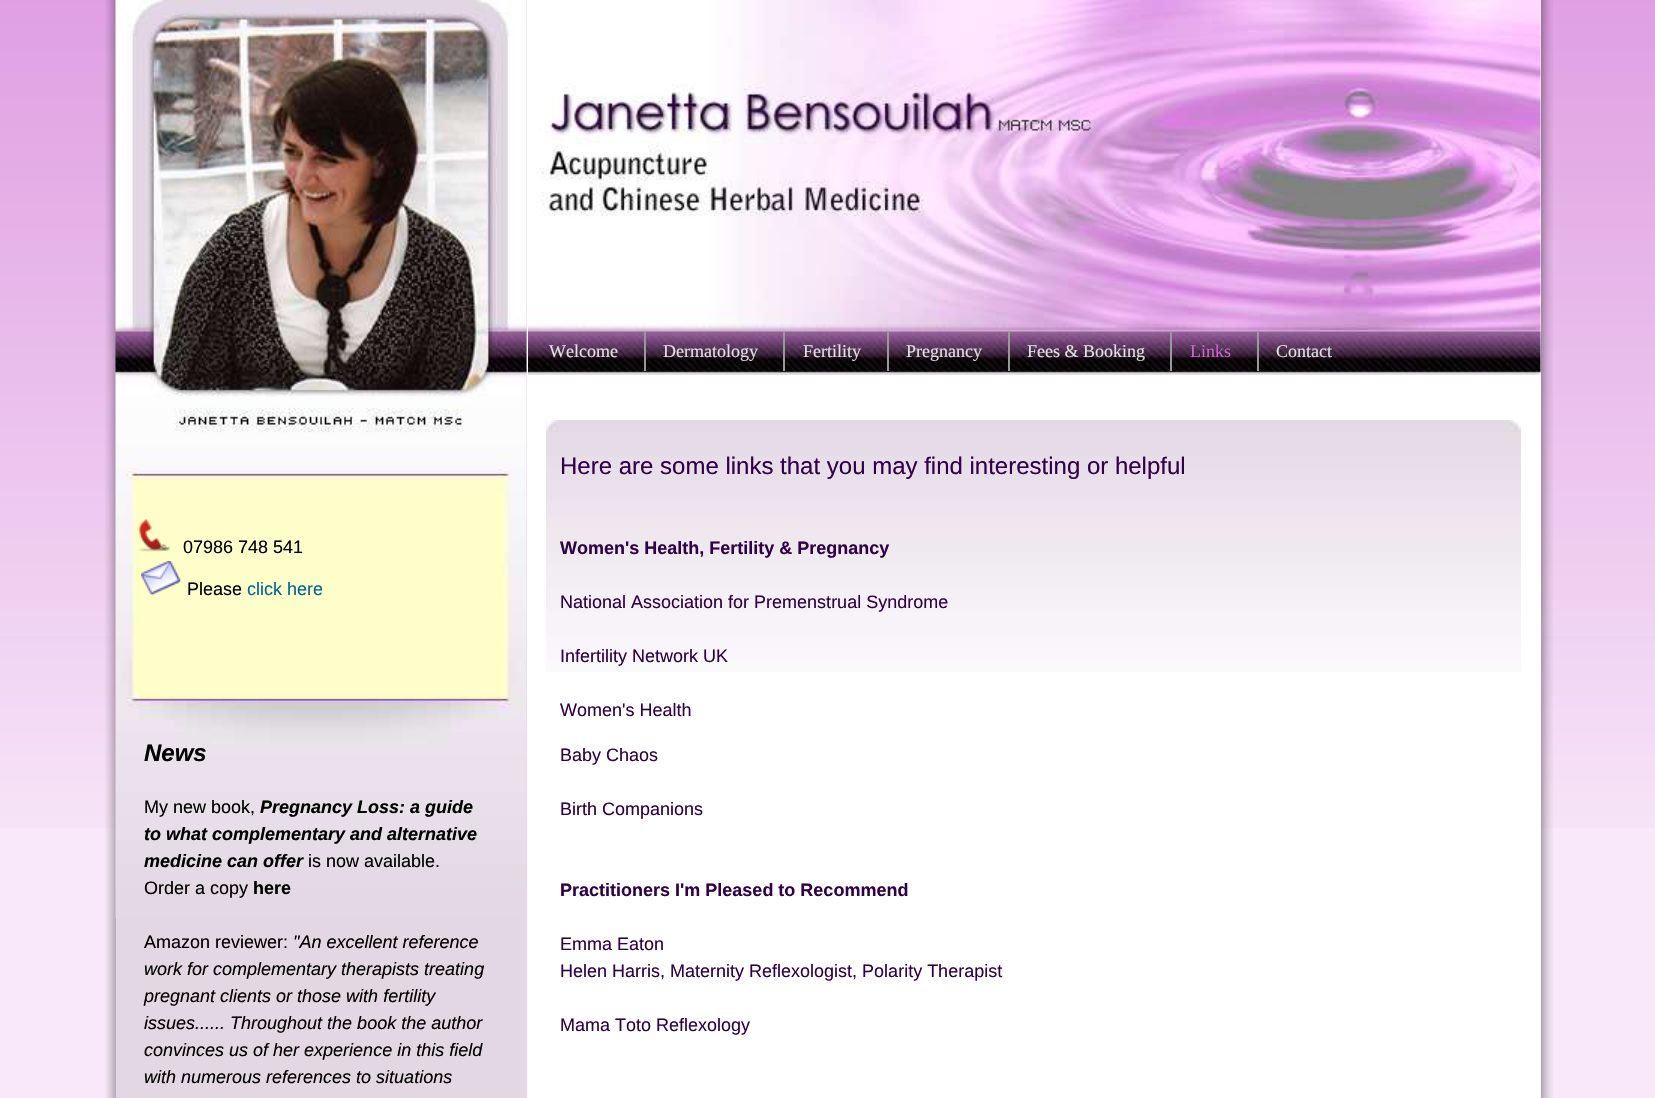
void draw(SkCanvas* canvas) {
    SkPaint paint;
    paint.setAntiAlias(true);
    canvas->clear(0xFFF8E8F9);
    canvas->drawImageRect(SkImages::DeferredFromEncodedData(SkData::MakeFromFileName("img1.png")), SkRect::MakeXYWH(0, 0, 1655, 828), SkSamplingOptions());
    canvas->drawImageRect(SkImages::DeferredFromEncodedData(SkData::MakeFromFileName("img2.png")), SkRect::MakeXYWH(105, 0, 1448, 1098), SkSamplingOptions());
    paint.setColor(0xFFE2D7E3);
    canvas->drawRect(SkRect::MakeXYWH(116, 0, 411, 1098), paint);
    canvas->drawImageRect(SkImages::DeferredFromEncodedData(SkData::MakeFromFileName("img3.png")), SkRect::MakeXYWH(115, 0, 412, 918), SkSamplingOptions());
    canvas->drawImageRect(SkImages::DeferredFromEncodedData(SkData::MakeFromFileName("img4.png")), SkRect::MakeXYWH(139, 518, 31, 34), SkSamplingOptions());
    SkFont font1(fontMgr->matchFamilyStyle("Liberation Sans", SkFontStyle::Normal()), 18);
    font1.setSubpixel(true);
    paint.setColor(0xFF000000);
    canvas->drawString("07986 748 541", 183, 553, font1, paint);
    canvas->drawImageRect(SkImages::DeferredFromEncodedData(SkData::MakeFromFileName("img5.png")), SkRect::MakeXYWH(141, 561, 40, 35), SkSamplingOptions());
    canvas->drawString("Please", 187, 595, font1, paint);
    paint.setColor(0xFF006699);
    canvas->drawString("click here", 247, 595, font1, paint);
    SkFont font2(fontMgr->matchFamilyStyle("Liberation Sans", SkFontStyle::BoldItalic()), 24);
    font2.setSubpixel(true);
    paint.setColor(0xFF000000);
    canvas->drawString("News", 144, 761, font2, paint);
    canvas->drawString("My new book,", 144, 813, font1, paint);
    SkFont font3(fontMgr->matchFamilyStyle("Liberation Sans", SkFontStyle::BoldItalic()), 18);
    font3.setSubpixel(true);
    canvas->drawString("Pregnancy Loss: a guide", 260, 813, font3, paint);
    canvas->drawString("to what complementary and alternative", 144, 840, font3, paint);
    canvas->drawString("medicine can offer", 144, 867, font3, paint);
    canvas->drawString("is now available.", 308, 867, font1, paint);
    canvas->drawString("Order a copy", 144, 894, font1, paint);
    SkFont font4(fontMgr->matchFamilyStyle("Liberation Sans", SkFontStyle::Bold()), 18);
    font4.setSubpixel(true);
    canvas->drawString("here", 253, 894, font4, paint);
    canvas->drawString("Amazon reviewer:", 144, 948, font1, paint);
    SkFont font5(fontMgr->matchFamilyStyle("Liberation Sans", SkFontStyle::Italic()), 18);
    font5.setSubpixel(true);
    canvas->drawString("\"An excellent reference", 293, 948, font5, paint);
    canvas->drawString("work for complementary therapists treating", 144, 975, font5, paint);
    canvas->drawString("pregnant clients or those with fertility", 144, 1002, font5, paint);
    canvas->drawString("issues...... Throughout the book the author", 144, 1029, font5, paint);
    canvas->drawString("convinces us of her experience in this field", 144, 1056, font5, paint);
    canvas->drawString("with numerous references to situations", 144, 1083, font5, paint);
    paint.setColor(0xFFFFFFFF);
    canvas->drawRect(SkRect::MakeXYWH(1540, 0, 1, 1098), paint);
    canvas->drawImageRect(SkImages::DeferredFromEncodedData(SkData::MakeFromFileName("img6.png")), SkRect::MakeXYWH(528, 0, 1013, 375), SkSamplingOptions());
    SkFont font6(fontMgr->matchFamilyStyle("Liberation Serif", SkFontStyle::Normal()), 18);
    font6.setSubpixel(true);
    paint.setColor(0xFFE1E1E1);
    canvas->drawString("Welcome", 549, 357, font6, paint);
    paint.setColor(0xFF999999);
    canvas->drawRect(SkRect::MakeXYWH(644, 332, 2, 39), paint);
    paint.setColor(0xFFE1E1E1);
    canvas->drawString("Dermatology", 663, 357, font6, paint);
    paint.setColor(0xFF999999);
    canvas->drawRect(SkRect::MakeXYWH(783, 332, 2, 39), paint);
    paint.setColor(0xFFE1E1E1);
    canvas->drawString("Fertility", 803, 357, font6, paint);
    paint.setColor(0xFF999999);
    canvas->drawRect(SkRect::MakeXYWH(887, 332, 2, 39), paint);
    paint.setColor(0xFFE1E1E1);
    canvas->drawString("Pregnancy", 906, 357, font6, paint);
    paint.setColor(0xFF999999);
    canvas->drawRect(SkRect::MakeXYWH(1008, 332, 2, 39), paint);
    paint.setColor(0xFFE1E1E1);
    canvas->drawString("Fees & Booking", 1027, 357, font6, paint);
    paint.setColor(0xFF999999);
    canvas->drawRect(SkRect::MakeXYWH(1170, 332, 2, 39), paint);
    paint.setColor(0xFFCC66CC);
    canvas->drawString("Links", 1190, 357, font6, paint);
    paint.setColor(0xFF999999);
    canvas->drawRect(SkRect::MakeXYWH(1257, 332, 2, 39), paint);
    paint.setColor(0xFFE1E1E1);
    canvas->drawString("Contact", 1276, 357, font6, paint);
    canvas->drawImageRect(SkImages::DeferredFromEncodedData(SkData::MakeFromFileName("img7.png")), SkRect::MakeXYWH(546, 420, 975, 252), SkSamplingOptions());
    SkFont font7(fontMgr->matchFamilyStyle("Liberation Sans", SkFontStyle::Normal()), 24);
    font7.setSubpixel(true);
    paint.setColor(0xFF300147);
    canvas->drawString("Here are some links that you may find interesting or helpful", 560, 474, font7, paint);
    canvas->drawString("Women's Health, Fertility & Pregnancy", 560, 554, font4, paint);
    canvas->drawString("National Association for Premenstrual Syndrome", 560, 608, font1, paint);
    canvas->drawString("Infertility Network UK", 560, 662, font1, paint);
    canvas->drawString("Women's Health", 560, 716, font1, paint);
    canvas->drawString("Baby Chaos", 560, 761, font1, paint);
    canvas->drawString("Birth Companions", 560, 815, font1, paint);
    canvas->drawString("Practitioners I'm Pleased to Recommend", 560, 896, font4, paint);
    canvas->drawString("Emma Eaton", 560, 950, font1, paint);
    canvas->drawString("Helen Harris, Maternity Reflexologist, Polarity Therapist", 560, 977, font1, paint);
    canvas->drawString("Mama Toto Reflexology", 560, 1031, font1, paint);
}
